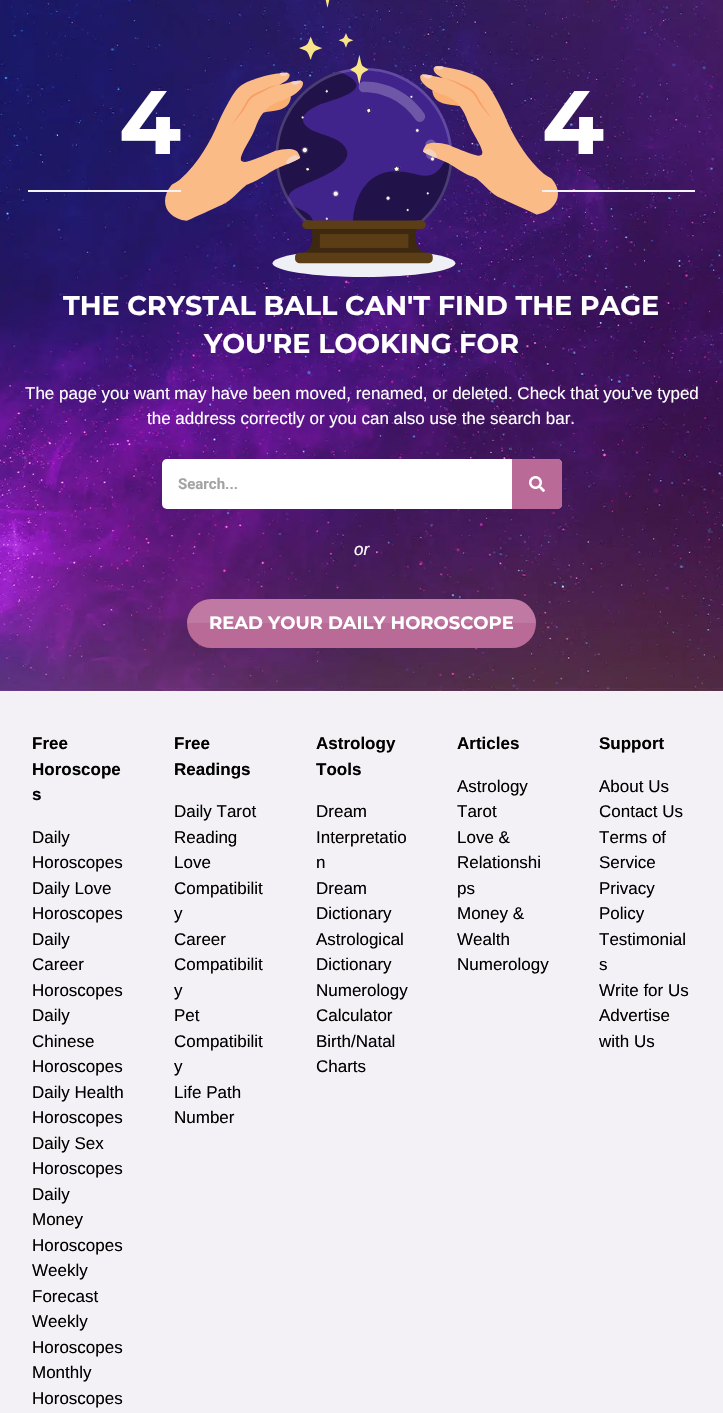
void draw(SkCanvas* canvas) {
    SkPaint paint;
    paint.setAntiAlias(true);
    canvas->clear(0xFFF3F1F6);
    canvas->drawImageRect(SkImages::DeferredFromEncodedData(SkData::MakeFromFileName("img1.png")), SkRect::MakeXYWH(0, 0, 723, 691), SkSamplingOptions());
    canvas->drawImageRect(SkImages::DeferredFromEncodedData(SkData::MakeFromFileName("img2.png")), SkRect::MakeXYWH(165, 0, 393, 277), SkSamplingOptions());
    paint.setColor(0xFFF3F4F6);
    canvas->drawRect(SkRect::MakeXYWH(28, 190, 153, 2), paint);
    SkFont font1(fontMgr->matchFamilyStyle("Montserrat", SkFontStyle(100, SkFontStyle::kNormal_Width, SkFontStyle::kUpright_Slant)), 90);
    font1.setSubpixel(true);
    paint.setColor(0xFFFFFFFF);
    canvas->drawString("4", 119, 154, font1, paint);
    paint.setColor(0xFFF3F4F6);
    canvas->drawRect(SkRect::MakeXYWH(542, 190, 153, 2), paint);
    paint.setColor(0xFFFFFFFF);
    canvas->drawString("4", 542, 154, font1, paint);
    SkFont font2(fontMgr->matchFamilyStyle("Montserrat", SkFontStyle(100, SkFontStyle::kNormal_Width, SkFontStyle::kUpright_Slant)), 27);
    font2.setSubpixel(true);
    canvas->drawString("THE CRYSTAL BALL CAN'T FIND THE PAGE", 63, 315, font2, paint);
    canvas->drawString("YOU'RE LOOKING FOR", 204, 353, font2, paint);
    SkFont font3(fontMgr->matchFamilyStyle("Liberation Sans", SkFontStyle::Normal()), 17);
    font3.setSubpixel(true);
    canvas->drawString("The page you want may have been moved, renamed, or deleted. Check that you’ve typed", 25, 399, font3, paint);
    canvas->drawString("the address correctly or you can also use the search bar.", 147, 424, font3, paint);
    canvas->drawRoundRect(SkRect::MakeXYWH(162, 459, 400, 50), 5, 5, paint);
    SkFont font4(fontMgr->matchFamilyStyle("Roboto", SkFontStyle::Bold()), 15);
    font4.setSubpixel(true);
    paint.setColor(0xFFA3A3A3);
    canvas->drawString("Search...", 178, 489, font4, paint);
    paint.setColor(0xFFB96A97);
    canvas->drawPath(SkPathBuilder().moveTo(512, 459).lineTo(557, 459).cubicTo(560, 459, 562, 461, 562, 464).lineTo(562, 504).cubicTo(562, 507, 560, 509, 557, 509).lineTo(512, 509).close().detach(), paint);
    canvas->drawImageRect(SkImages::DeferredFromEncodedData(SkData::MakeFromFileName("img3.png")), SkRect::MakeXYWH(529, 476, 16, 16), SkSamplingOptions());
    SkFont font5(fontMgr->matchFamilyStyle("Liberation Sans", SkFontStyle::Italic()), 17);
    font5.setSubpixel(true);
    paint.setColor(0xFFFFFFFF);
    canvas->drawString("or", 354, 555, font5, paint);
    paint.setColor(0xFFB96A97);
    canvas->drawRoundRect(SkRect::MakeXYWH(187, 599, 349, 49), 24.5f, 24.5f, paint);
    canvas->save();
    canvas->clipPath(SkPathBuilder().moveTo(211.5f, 599).lineTo(511.5f, 599).cubicTo(525, 599, 536, 610, 536, 623.5f).cubicTo(536, 637, 525, 648, 511.5f, 648).lineTo(211.5f, 648).cubicTo(198, 648, 187, 637, 187, 623.5f).cubicTo(187, 610, 198, 599, 211.5f, 599).close().detach(), true);
    paint.setColor(0x1AFFFFFF);
    canvas->drawRect(SkRect::MakeXYWH(187, 599, 349, 24), paint);
    canvas->restore();
    SkFont font6(fontMgr->matchFamilyStyle("Montserrat", SkFontStyle(100, SkFontStyle::kNormal_Width, SkFontStyle::kUpright_Slant)), 18);
    font6.setSubpixel(true);
    paint.setColor(0xFFFFFFFF);
    canvas->drawString("READ YOUR DAILY HOROSCOPE", 209, 629, font6, paint);
    SkFont font7(fontMgr->matchFamilyStyle("Liberation Sans", SkFontStyle::Bold()), 17);
    font7.setSubpixel(true);
    paint.setColor(0xFF000000);
    canvas->drawString("Free", 32, 749, font7, paint);
    canvas->drawString("Horoscope", 32, 775, font7, paint);
    canvas->drawString("s", 32, 800, font7, paint);
    canvas->drawString("Daily", 32, 843, font3, paint);
    canvas->drawString("Horoscopes", 32, 868, font3, paint);
    canvas->drawString("Daily Love", 32, 894, font3, paint);
    canvas->drawString("Horoscopes", 32, 919, font3, paint);
    canvas->drawString("Daily", 32, 945, font3, paint);
    canvas->drawString("Career", 32, 970, font3, paint);
    canvas->drawString("Horoscopes", 32, 996, font3, paint);
    canvas->drawString("Daily", 32, 1021, font3, paint);
    canvas->drawString("Chinese", 32, 1047, font3, paint);
    canvas->drawString("Horoscopes", 32, 1072, font3, paint);
    canvas->drawString("Daily Health", 32, 1098, font3, paint);
    canvas->drawString("Horoscopes", 32, 1123, font3, paint);
    canvas->drawString("Daily Sex", 32, 1149, font3, paint);
    canvas->drawString("Horoscopes", 32, 1174, font3, paint);
    canvas->drawString("Daily", 32, 1200, font3, paint);
    canvas->drawString("Money", 32, 1225, font3, paint);
    canvas->drawString("Horoscopes", 32, 1251, font3, paint);
    canvas->drawString("Weekly", 32, 1276, font3, paint);
    canvas->drawString("Forecast", 32, 1302, font3, paint);
    canvas->drawString("Weekly", 32, 1327, font3, paint);
    canvas->drawString("Horoscopes", 32, 1353, font3, paint);
    canvas->drawString("Monthly", 32, 1378, font3, paint);
    canvas->drawString("Horoscopes", 32, 1404, font3, paint);
    canvas->drawString("Free", 174, 749, font7, paint);
    canvas->drawString("Readings", 174, 775, font7, paint);
    canvas->drawString("Daily Tarot", 174, 817, font3, paint);
    canvas->drawString("Reading", 174, 843, font3, paint);
    canvas->drawString("Love", 174, 868, font3, paint);
    canvas->drawString("Compatibilit", 174, 894, font3, paint);
    canvas->drawString("y", 174, 919, font3, paint);
    canvas->drawString("Career", 174, 945, font3, paint);
    canvas->drawString("Compatibilit", 174, 970, font3, paint);
    canvas->drawString("y", 174, 996, font3, paint);
    canvas->drawString("Pet", 174, 1021, font3, paint);
    canvas->drawString("Compatibilit", 174, 1047, font3, paint);
    canvas->drawString("y", 174, 1072, font3, paint);
    canvas->drawString("Life Path", 174, 1098, font3, paint);
    canvas->drawString("Number", 174, 1123, font3, paint);
    canvas->drawString("Astrology", 316, 749, font7, paint);
    canvas->drawString("Tools", 316, 775, font7, paint);
    canvas->drawString("Dream", 316, 817, font3, paint);
    canvas->drawString("Interpretatio", 316, 843, font3, paint);
    canvas->drawString("n", 316, 868, font3, paint);
    canvas->drawString("Dream", 316, 894, font3, paint);
    canvas->drawString("Dictionary", 316, 919, font3, paint);
    canvas->drawString("Astrological", 316, 945, font3, paint);
    canvas->drawString("Dictionary", 316, 970, font3, paint);
    canvas->drawString("Numerology", 316, 996, font3, paint);
    canvas->drawString("Calculator", 316, 1021, font3, paint);
    canvas->drawString("Birth/Natal", 316, 1047, font3, paint);
    canvas->drawString("Charts", 316, 1072, font3, paint);
    canvas->drawString("Articles", 457, 749, font7, paint);
    canvas->drawString("Astrology", 457, 792, font3, paint);
    canvas->drawString("Tarot", 457, 817, font3, paint);
    canvas->drawString("Love &", 457, 843, font3, paint);
    canvas->drawString("Relationshi", 457, 868, font3, paint);
    canvas->drawString("ps", 457, 894, font3, paint);
    canvas->drawString("Money &", 457, 919, font3, paint);
    canvas->drawString("Wealth", 457, 945, font3, paint);
    canvas->drawString("Numerology", 457, 970, font3, paint);
    canvas->drawString("Support", 599, 749, font7, paint);
    canvas->drawString("About Us", 599, 792, font3, paint);
    canvas->drawString("Contact Us", 599, 817, font3, paint);
    canvas->drawString("Terms of", 599, 843, font3, paint);
    canvas->drawString("Service", 599, 868, font3, paint);
    canvas->drawString("Privacy", 599, 894, font3, paint);
    canvas->drawString("Policy", 599, 919, font3, paint);
    canvas->drawString("Testimonial", 599, 945, font3, paint);
    canvas->drawString("s", 599, 970, font3, paint);
    canvas->drawString("Write for Us", 599, 996, font3, paint);
    canvas->drawString("Advertise", 599, 1021, font3, paint);
    canvas->drawString("with Us", 599, 1047, font3, paint);
}
